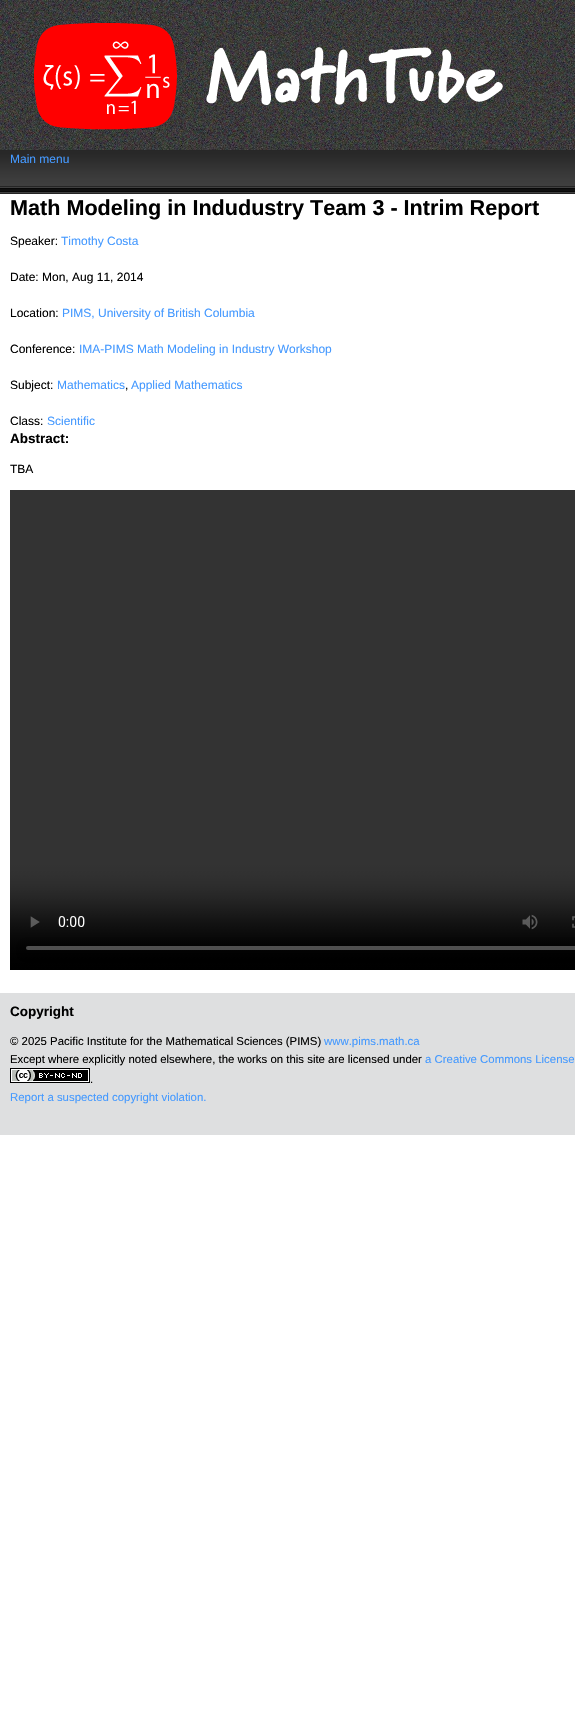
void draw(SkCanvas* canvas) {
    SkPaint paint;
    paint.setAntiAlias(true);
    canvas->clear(0xFFFFFFFF);
    canvas->drawImageRect(SkImages::DeferredFromEncodedData(SkData::MakeFromFileName("img1.png")), SkRect::MakeXYWH(0, 0, 575, 150), SkSamplingOptions());
    canvas->drawImageRect(SkImages::DeferredFromEncodedData(SkData::MakeFromFileName("img2.png")), SkRect::MakeXYWH(34, 23, 469, 107), SkSamplingOptions());
    canvas->drawImageRect(SkImages::DeferredFromEncodedData(SkData::MakeFromFileName("img3.png")), SkRect::MakeXYWH(0, 150, 575, 44), SkSamplingOptions());
    SkFont font1(fontMgr->matchFamilyStyle("Liberation Sans", SkFontStyle::Normal()), 12);
    font1.setSubpixel(true);
    paint.setColor(0xFF4499FF);
    canvas->drawString("Main menu", 10, 163, font1, paint);
    SkFont font2(fontMgr->matchFamilyStyle("Liberation Sans", SkFontStyle::Bold()), 21.6f);
    font2.setSubpixel(true);
    paint.setColor(0xFF000000);
    canvas->drawString("Math Modeling in Indudustry Team 3 - Intrim Report", 10, 215, font2, paint);
    canvas->drawString("Speaker:", 10, 245, font1, paint);
    paint.setColor(0xFF4499FF);
    canvas->drawString("Timothy Costa", 61, 245, font1, paint);
    paint.setColor(0xFF000000);
    canvas->drawString("Date: Mon, Aug 11, 2014", 10, 281, font1, paint);
    canvas->drawString("Location:", 10, 317, font1, paint);
    paint.setColor(0xFF4499FF);
    canvas->drawString("PIMS, University of British Columbia", 62, 317, font1, paint);
    paint.setColor(0xFF000000);
    canvas->drawString("Conference:", 10, 353, font1, paint);
    paint.setColor(0xFF4499FF);
    canvas->drawString("IMA-PIMS Math Modeling in Industry Workshop", 79, 353, font1, paint);
    paint.setColor(0xFF000000);
    canvas->drawString("Subject:", 10, 389, font1, paint);
    paint.setColor(0xFF4499FF);
    canvas->drawString("Mathematics", 57, 389, font1, paint);
    paint.setColor(0xFF000000);
    canvas->drawString(",", 125, 389, font1, paint);
    paint.setColor(0xFF4499FF);
    canvas->drawString("Applied Mathematics", 131, 389, font1, paint);
    paint.setColor(0xFF000000);
    canvas->drawString("Class:", 10, 425, font1, paint);
    paint.setColor(0xFF4499FF);
    canvas->drawString("Scientific", 47, 425, font1, paint);
    SkFont font3(fontMgr->matchFamilyStyle("Liberation Sans", SkFontStyle::Bold()), 13.5f);
    font3.setSubpixel(true);
    paint.setColor(0xFF000000);
    canvas->drawString("Abstract:", 10, 443, font3, paint);
    canvas->drawString("TBA", 10, 473, font1, paint);
    canvas->drawImageRect(SkImages::DeferredFromEncodedData(SkData::MakeFromFileName("img4.png")), SkRect::MakeXYWH(10, 490, 565, 480), SkSamplingOptions());
    paint.setColor(0xFFDEDFE0);
    canvas->drawRect(SkRect::MakeXYWH(0, 993, 575, 142), paint);
    paint.setColor(0xFF000000);
    canvas->drawString("Copyright", 10, 1016, font3, paint);
    SkFont font4(fontMgr->matchFamilyStyle("Liberation Sans", SkFontStyle::Normal()), 11.4f);
    font4.setSubpixel(true);
    canvas->drawString("© 2025 Pacific Institute for the Mathematical Sciences (PIMS)", 10, 1045, font4, paint);
    paint.setColor(0xFF4499FF);
    canvas->drawString("www.pims.math.ca", 324, 1045, font4, paint);
    paint.setColor(0xFF000000);
    canvas->drawString("Except where explicitly noted elsewhere, the works on this site are licensed under", 10, 1063, font4, paint);
    paint.setColor(0xFF4499FF);
    canvas->drawString("a Creative Commons License", 425, 1063, font4, paint);
    canvas->drawImageRect(SkImages::DeferredFromEncodedData(SkData::MakeFromFileName("img5.png")), SkRect::MakeXYWH(10, 1068, 80, 15), SkSamplingOptions());
    paint.setColor(0xFF000000);
    canvas->drawString(".", 90, 1083, font4, paint);
    paint.setColor(0xFF4499FF);
    canvas->drawString("Report a suspected copyright violation.", 10, 1101, font4, paint);
}
